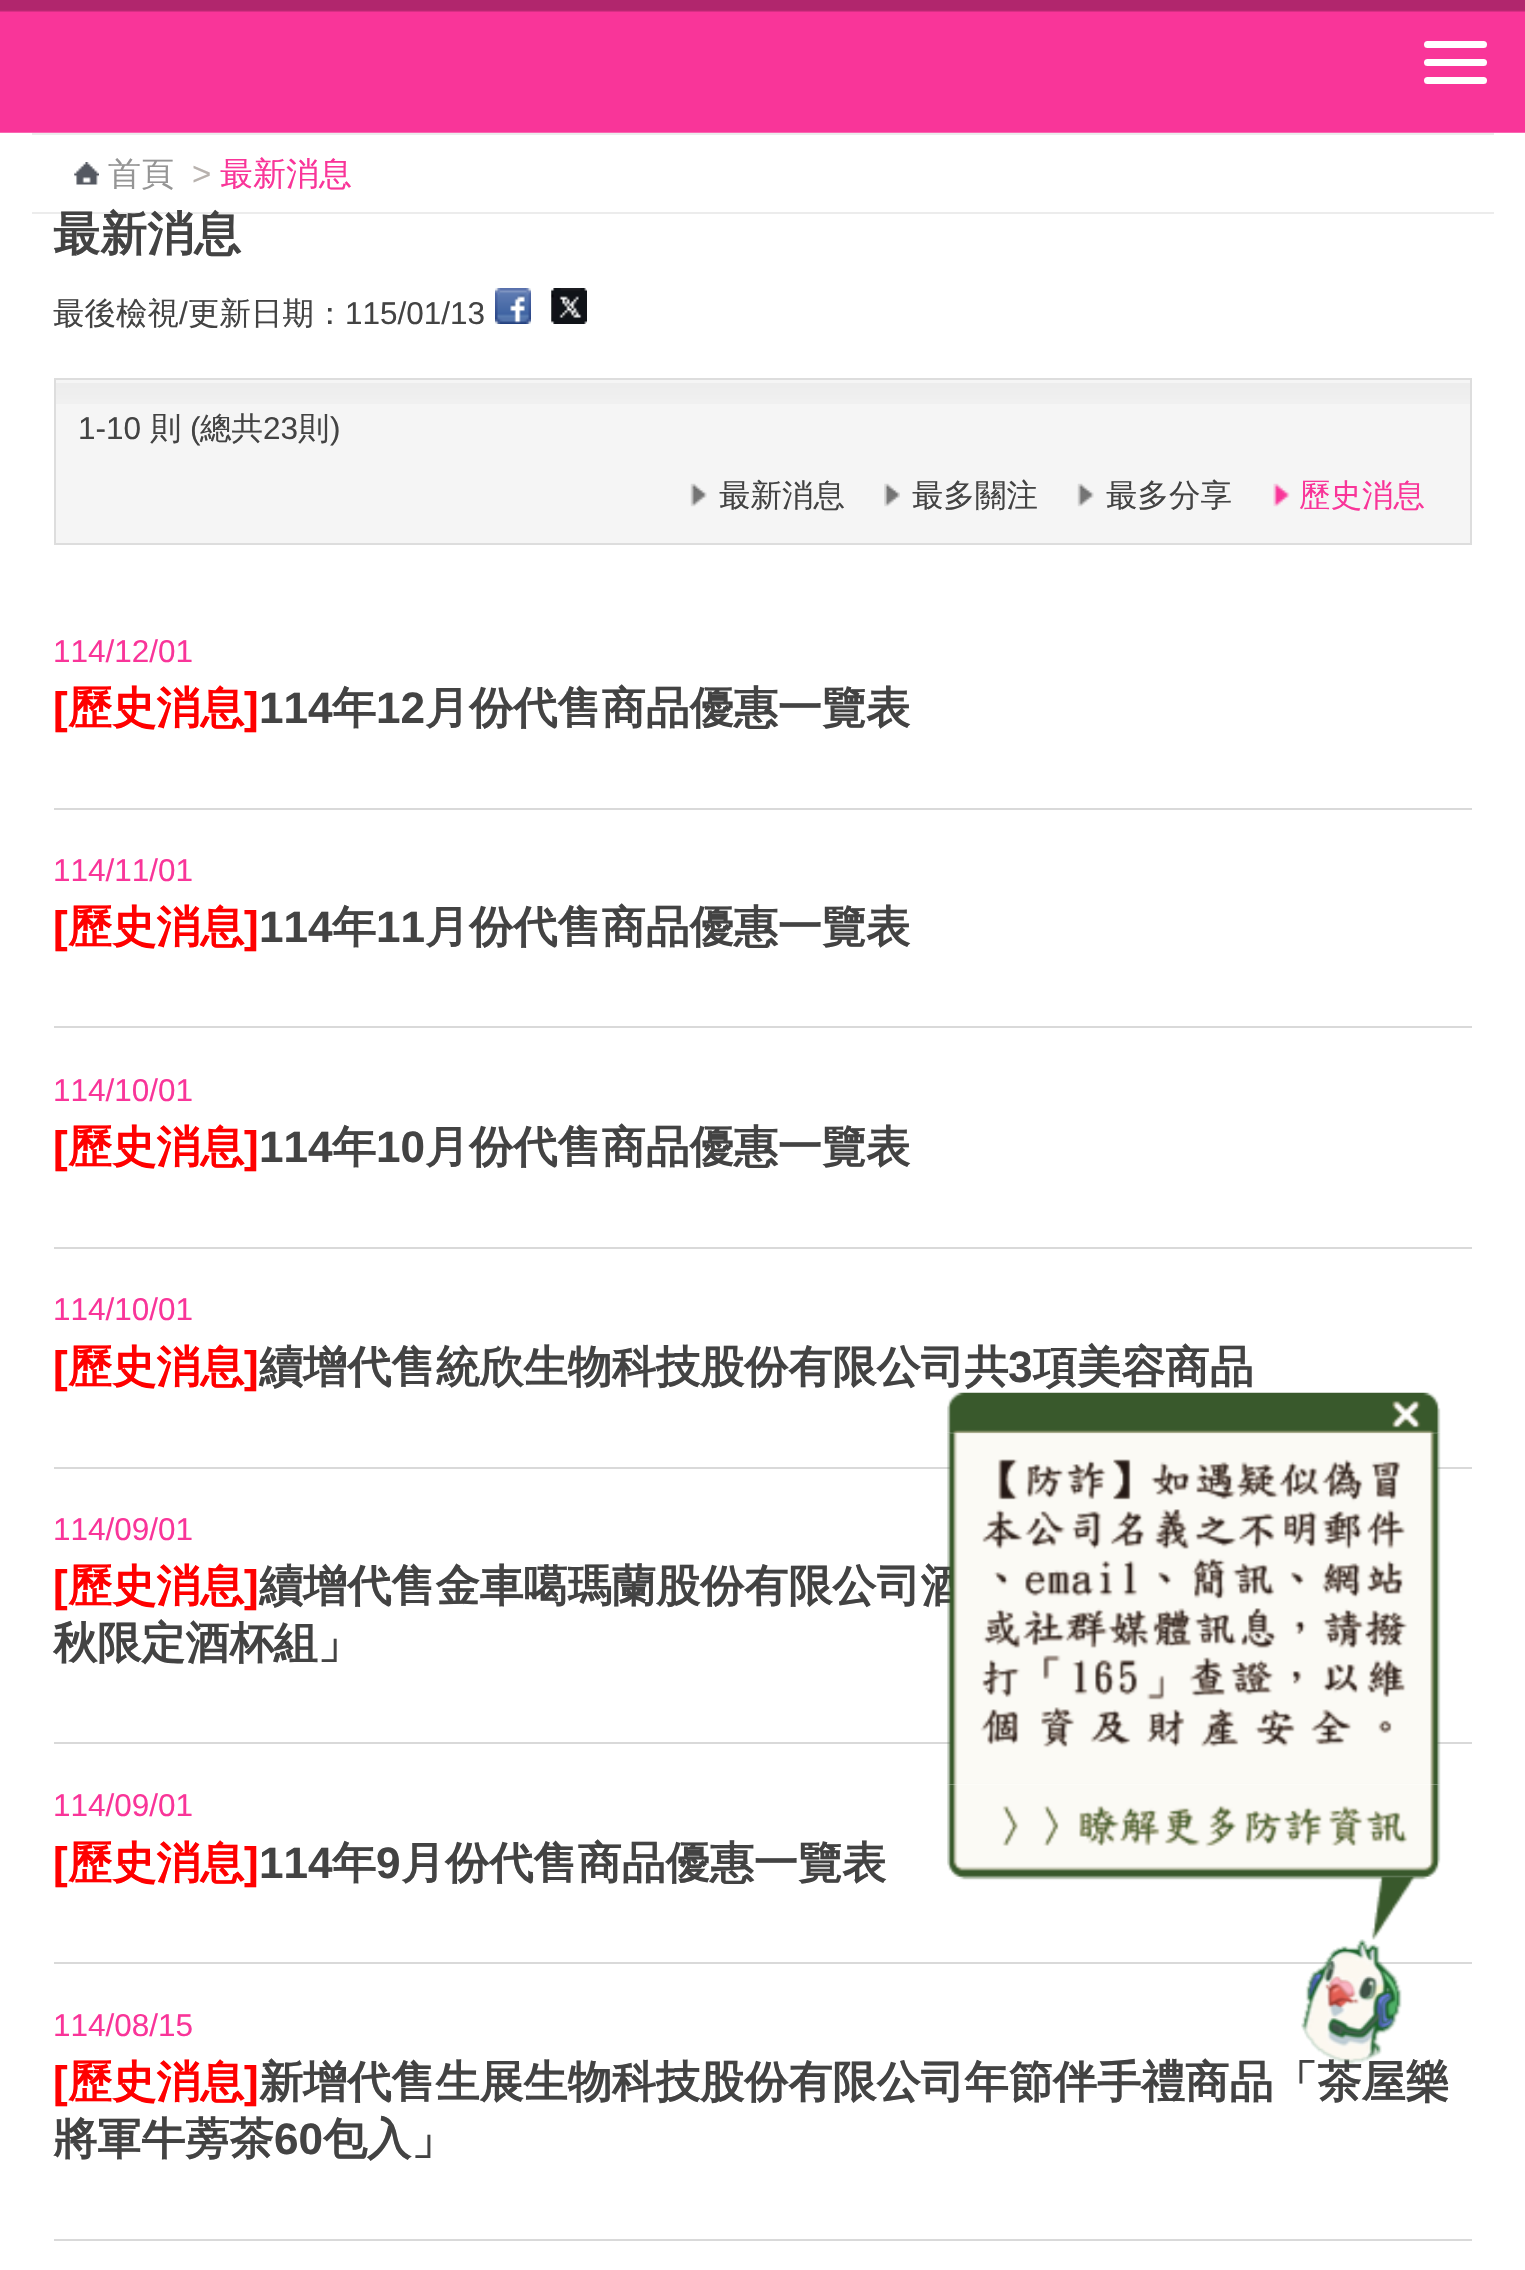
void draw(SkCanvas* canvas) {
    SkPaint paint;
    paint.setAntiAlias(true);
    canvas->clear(0xFFFFFFFF);
    canvas->drawImageRect(SkImages::DeferredFromEncodedData(SkData::MakeFromFileName("img1.png")), SkRect::MakeXYWH(0, 0, 1525, 133), SkSamplingOptions());
    paint.setColor(0xFFFFFFFF);
    canvas->drawRoundRect(SkRect::MakeXYWH(1424, 41, 63, 7), 3.5f, 3.5f, paint);
    canvas->drawRoundRect(SkRect::MakeXYWH(1424, 59, 63, 7), 3.5f, 3.5f, paint);
    canvas->drawRoundRect(SkRect::MakeXYWH(1424, 77, 63, 7), 3.5f, 3.5f, paint);
    paint.setColor(0xFFECECEC);
    canvas->drawRect(SkRect::MakeXYWH(32, 133, 1462, 2), paint);
    canvas->drawRect(SkRect::MakeXYWH(32, 212, 1462, 2), paint);
    canvas->drawImageRect(SkImages::DeferredFromEncodedData(SkData::MakeFromFileName("img2.png")), SkRect::MakeXYWH(74, 162, 25, 23), SkSamplingOptions());
    SkFont font1(fontMgr->matchFamilyStyle("WenQuanYi Zen Hei", SkFontStyle(500, SkFontStyle::kNormal_Width, SkFontStyle::kUpright_Slant)), 33);
    font1.setSubpixel(true);
    paint.setColor(0xFF959595);
    canvas->drawString("首頁", 108, 185, font1, paint);
    SkFont font2(fontMgr->matchFamilyStyle("Liberation Sans", SkFontStyle::Normal()), 33);
    font2.setSubpixel(true);
    paint.setColor(0xFFB8B2AE);
    canvas->drawString(">", 192, 185, font2, paint);
    paint.setColor(0xFFF93599);
    canvas->drawString("最新消息", 220, 185, font1, paint);
    SkFont font3(fontMgr->matchFamilyStyle("WenQuanYi Zen Hei", SkFontStyle::Bold()), 47);
    font3.setSubpixel(true);
    paint.setColor(0xFF434343);
    canvas->drawString("最新消息", 53, 250, font3, paint);
    SkFont font4(fontMgr->matchFamilyStyle("WenQuanYi Zen Hei", SkFontStyle(500, SkFontStyle::kNormal_Width, SkFontStyle::kUpright_Slant)), 31.5f);
    font4.setSubpixel(true);
    canvas->drawString("最後檢視", 53, 324, font4, paint);
    SkFont font5(fontMgr->matchFamilyStyle("Liberation Sans", SkFontStyle::Normal()), 31.5f);
    font5.setSubpixel(true);
    canvas->drawString("/", 179, 324, font5, paint);
    canvas->drawString("更新日期：", 188, 324, font4, paint);
    canvas->drawString("115/01/13", 345, 324, font5, paint);
    canvas->drawImageRect(SkImages::DeferredFromEncodedData(SkData::MakeFromFileName("img3.png")), SkRect::MakeXYWH(495, 288, 36, 36), SkSamplingOptions());
    canvas->drawImageRect(SkImages::DeferredFromEncodedData(SkData::MakeFromFileName("img4.png")), SkRect::MakeXYWH(551, 288, 36, 36), SkSamplingOptions());
    paint.setColor(0xFFF5F5F5);
    canvas->drawRect(SkRect::MakeXYWH(56, 380, 1414, 163), paint);
    canvas->drawImageRect(SkImages::DeferredFromEncodedData(SkData::MakeFromFileName("img5.png")), SkRect::MakeXYWH(56, 383, 1414, 21), SkSamplingOptions());
    paint.setStyle(SkPaint::kStroke_Style);
    paint.setStrokeWidth(2);
    paint.setColor(0xFFDDDDDD);
    canvas->drawRect(SkRect::MakeXYWH(55, 379, 1416, 165), paint);
    paint.setStyle(SkPaint::kFill_Style);
    paint.setColor(0xFF434343);
    canvas->drawString("1-10", 78, 439, font5, paint);
    canvas->drawString("則", 150, 439, font4, paint);
    canvas->drawString("(", 190, 439, font5, paint);
    canvas->drawString("總共", 200, 439, font4, paint);
    canvas->drawString("23", 263, 439, font5, paint);
    canvas->drawString("則", 298, 439, font4, paint);
    canvas->drawString(")", 330, 439, font5, paint);
    canvas->drawImageRect(SkImages::DeferredFromEncodedData(SkData::MakeFromFileName("img6.png")), SkRect::MakeXYWH(690, 483, 17, 24), SkSamplingOptions());
    canvas->drawString("最新消息", 719, 506, font4, paint);
    canvas->drawImageRect(SkImages::DeferredFromEncodedData(SkData::MakeFromFileName("img7.png")), SkRect::MakeXYWH(884, 483, 16, 24), SkSamplingOptions());
    canvas->drawString("最多關注", 912, 506, font4, paint);
    canvas->drawImageRect(SkImages::DeferredFromEncodedData(SkData::MakeFromFileName("img6.png")), SkRect::MakeXYWH(1077, 483, 17, 24), SkSamplingOptions());
    canvas->drawString("最多分享", 1106, 506, font4, paint);
    canvas->drawImageRect(SkImages::DeferredFromEncodedData(SkData::MakeFromFileName("img8.png")), SkRect::MakeXYWH(1273, 483, 17, 24), SkSamplingOptions());
    paint.setColor(0xFFF93599);
    canvas->drawString("歷史消息", 1299, 506, font4, paint);
    paint.setColor(0xFFD9D9D9);
    canvas->drawRect(SkRect::MakeXYWH(54, 808, 1418, 2), paint);
    paint.setColor(0xFFF93599);
    canvas->drawString("114/12/01", 53, 662, font5, paint);
    SkFont font6(fontMgr->matchFamilyStyle("Liberation Sans", SkFontStyle::Bold()), 44.1f);
    font6.setSubpixel(true);
    paint.setColor(0xFFFF0000);
    canvas->drawString("[", 53, 723, font6, paint);
    SkFont font7(fontMgr->matchFamilyStyle("WenQuanYi Zen Hei", SkFontStyle::Bold()), 44.1f);
    font7.setSubpixel(true);
    canvas->drawString("歷史消息", 68, 723, font7, paint);
    canvas->drawString("]", 244, 723, font6, paint);
    paint.setColor(0xFF434343);
    canvas->drawString("114", 259, 723, font6, paint);
    canvas->drawString("年", 332, 723, font7, paint);
    canvas->drawString("12", 376, 723, font6, paint);
    canvas->drawString("月份代售商品優惠一覽表", 425, 723, font7, paint);
    paint.setColor(0xFFD9D9D9);
    canvas->drawRect(SkRect::MakeXYWH(54, 1026, 1418, 2), paint);
    paint.setColor(0xFFF93599);
    canvas->drawString("114/11/01", 53, 881, font5, paint);
    paint.setColor(0xFFFF0000);
    canvas->drawString("[", 53, 942, font6, paint);
    canvas->drawString("歷史消息", 68, 942, font7, paint);
    canvas->drawString("]", 244, 942, font6, paint);
    paint.setColor(0xFF434343);
    canvas->drawString("114", 259, 942, font6, paint);
    canvas->drawString("年", 332, 942, font7, paint);
    canvas->drawString("11", 376, 942, font6, paint);
    canvas->drawString("月份代售商品優惠一覽表", 425, 942, font7, paint);
    paint.setColor(0xFFD9D9D9);
    canvas->drawRect(SkRect::MakeXYWH(54, 1247, 1418, 2), paint);
    paint.setColor(0xFFF93599);
    canvas->drawString("114/10/01", 53, 1101, font5, paint);
    paint.setColor(0xFFFF0000);
    canvas->drawString("[", 53, 1162, font6, paint);
    canvas->drawString("歷史消息", 68, 1162, font7, paint);
    canvas->drawString("]", 244, 1162, font6, paint);
    paint.setColor(0xFF434343);
    canvas->drawString("114", 259, 1162, font6, paint);
    canvas->drawString("年", 332, 1162, font7, paint);
    canvas->drawString("10", 376, 1162, font6, paint);
    canvas->drawString("月份代售商品優惠一覽表", 425, 1162, font7, paint);
    paint.setColor(0xFFD9D9D9);
    canvas->drawRect(SkRect::MakeXYWH(54, 1467, 1418, 2), paint);
    paint.setColor(0xFFF93599);
    canvas->drawString("114/10/01", 53, 1320, font5, paint);
    paint.setColor(0xFFFF0000);
    canvas->drawString("[", 53, 1382, font6, paint);
    canvas->drawString("歷史消息", 68, 1382, font7, paint);
    canvas->drawString("]", 244, 1382, font6, paint);
    paint.setColor(0xFF434343);
    canvas->drawString("續增代售統欣生物科技股份有限公司共", 259, 1382, font7, paint);
    canvas->drawString("3", 1008, 1382, font6, paint);
    canvas->drawString("項美容商品", 1033, 1382, font7, paint);
    paint.setColor(0xFFD9D9D9);
    canvas->drawRect(SkRect::MakeXYWH(54, 1742, 1418, 2), paint);
    paint.setColor(0xFFF93599);
    canvas->drawString("114/09/01", 53, 1540, font5, paint);
    paint.setColor(0xFFFF0000);
    canvas->drawString("[", 53, 1601, font6, paint);
    canvas->drawString("歷史消息", 68, 1601, font7, paint);
    canvas->drawString("]", 244, 1601, font6, paint);
    paint.setColor(0xFF434343);
    canvas->drawString("續增代售金車噶瑪蘭股份有限公司酒", 259, 1601, font7, paint);
    canvas->drawString("秋限定酒杯組」", 53, 1658, font7, paint);
    paint.setColor(0xFFD9D9D9);
    canvas->drawRect(SkRect::MakeXYWH(54, 1962, 1418, 2), paint);
    paint.setColor(0xFFF93599);
    canvas->drawString("114/09/01", 53, 1816, font5, paint);
    paint.setColor(0xFFFF0000);
    canvas->drawString("[", 53, 1878, font6, paint);
    canvas->drawString("歷史消息", 68, 1878, font7, paint);
    canvas->drawString("]", 244, 1878, font6, paint);
    paint.setColor(0xFF434343);
    canvas->drawString("114", 259, 1878, font6, paint);
    canvas->drawString("年", 332, 1878, font7, paint);
    canvas->drawString("9", 376, 1878, font6, paint);
    canvas->drawString("月份代售商品優惠一覽表", 401, 1878, font7, paint);
    paint.setColor(0xFFD9D9D9);
    canvas->drawRect(SkRect::MakeXYWH(54, 2239, 1418, 2), paint);
    paint.setColor(0xFFF93599);
    canvas->drawString("114/08/15", 53, 2036, font5, paint);
    paint.setColor(0xFFFF0000);
    canvas->drawString("[", 53, 2097, font6, paint);
    canvas->drawString("歷史消息", 68, 2097, font7, paint);
    canvas->drawString("]", 244, 2097, font6, paint);
    paint.setColor(0xFF434343);
    canvas->drawString("新增代售生展生物科技股份有限公司年節伴手禮商品「茶屋樂", 259, 2097, font7, paint);
    canvas->drawString("將軍牛蒡茶", 53, 2154, font7, paint);
    canvas->drawString("60", 274, 2154, font6, paint);
    canvas->drawString("包入」", 323, 2154, font7, paint);
    canvas->drawImageRect(SkImages::DeferredFromEncodedData(SkData::MakeFromFileName("img9.png")), SkRect::MakeXYWH(947, 1392, 494, 42), SkSamplingOptions());
    canvas->drawImageRect(SkImages::DeferredFromEncodedData(SkData::MakeFromFileName("img10.png")), SkRect::MakeXYWH(947, 1433, 494, 352), SkSamplingOptions());
    canvas->drawImageRect(SkImages::DeferredFromEncodedData(SkData::MakeFromFileName("img11.png")), SkRect::MakeXYWH(947, 1783, 494, 94), SkSamplingOptions());
    canvas->drawImageRect(SkImages::DeferredFromEncodedData(SkData::MakeFromFileName("img13.png")), SkRect::MakeXYWH(1301, 1939, 101, 125), SkSamplingOptions());
    canvas->drawImageRect(SkImages::DeferredFromEncodedData(SkData::MakeFromFileName("img12.png")), SkRect::MakeXYWH(958, 1876, 470, 64), SkSamplingOptions());
}
